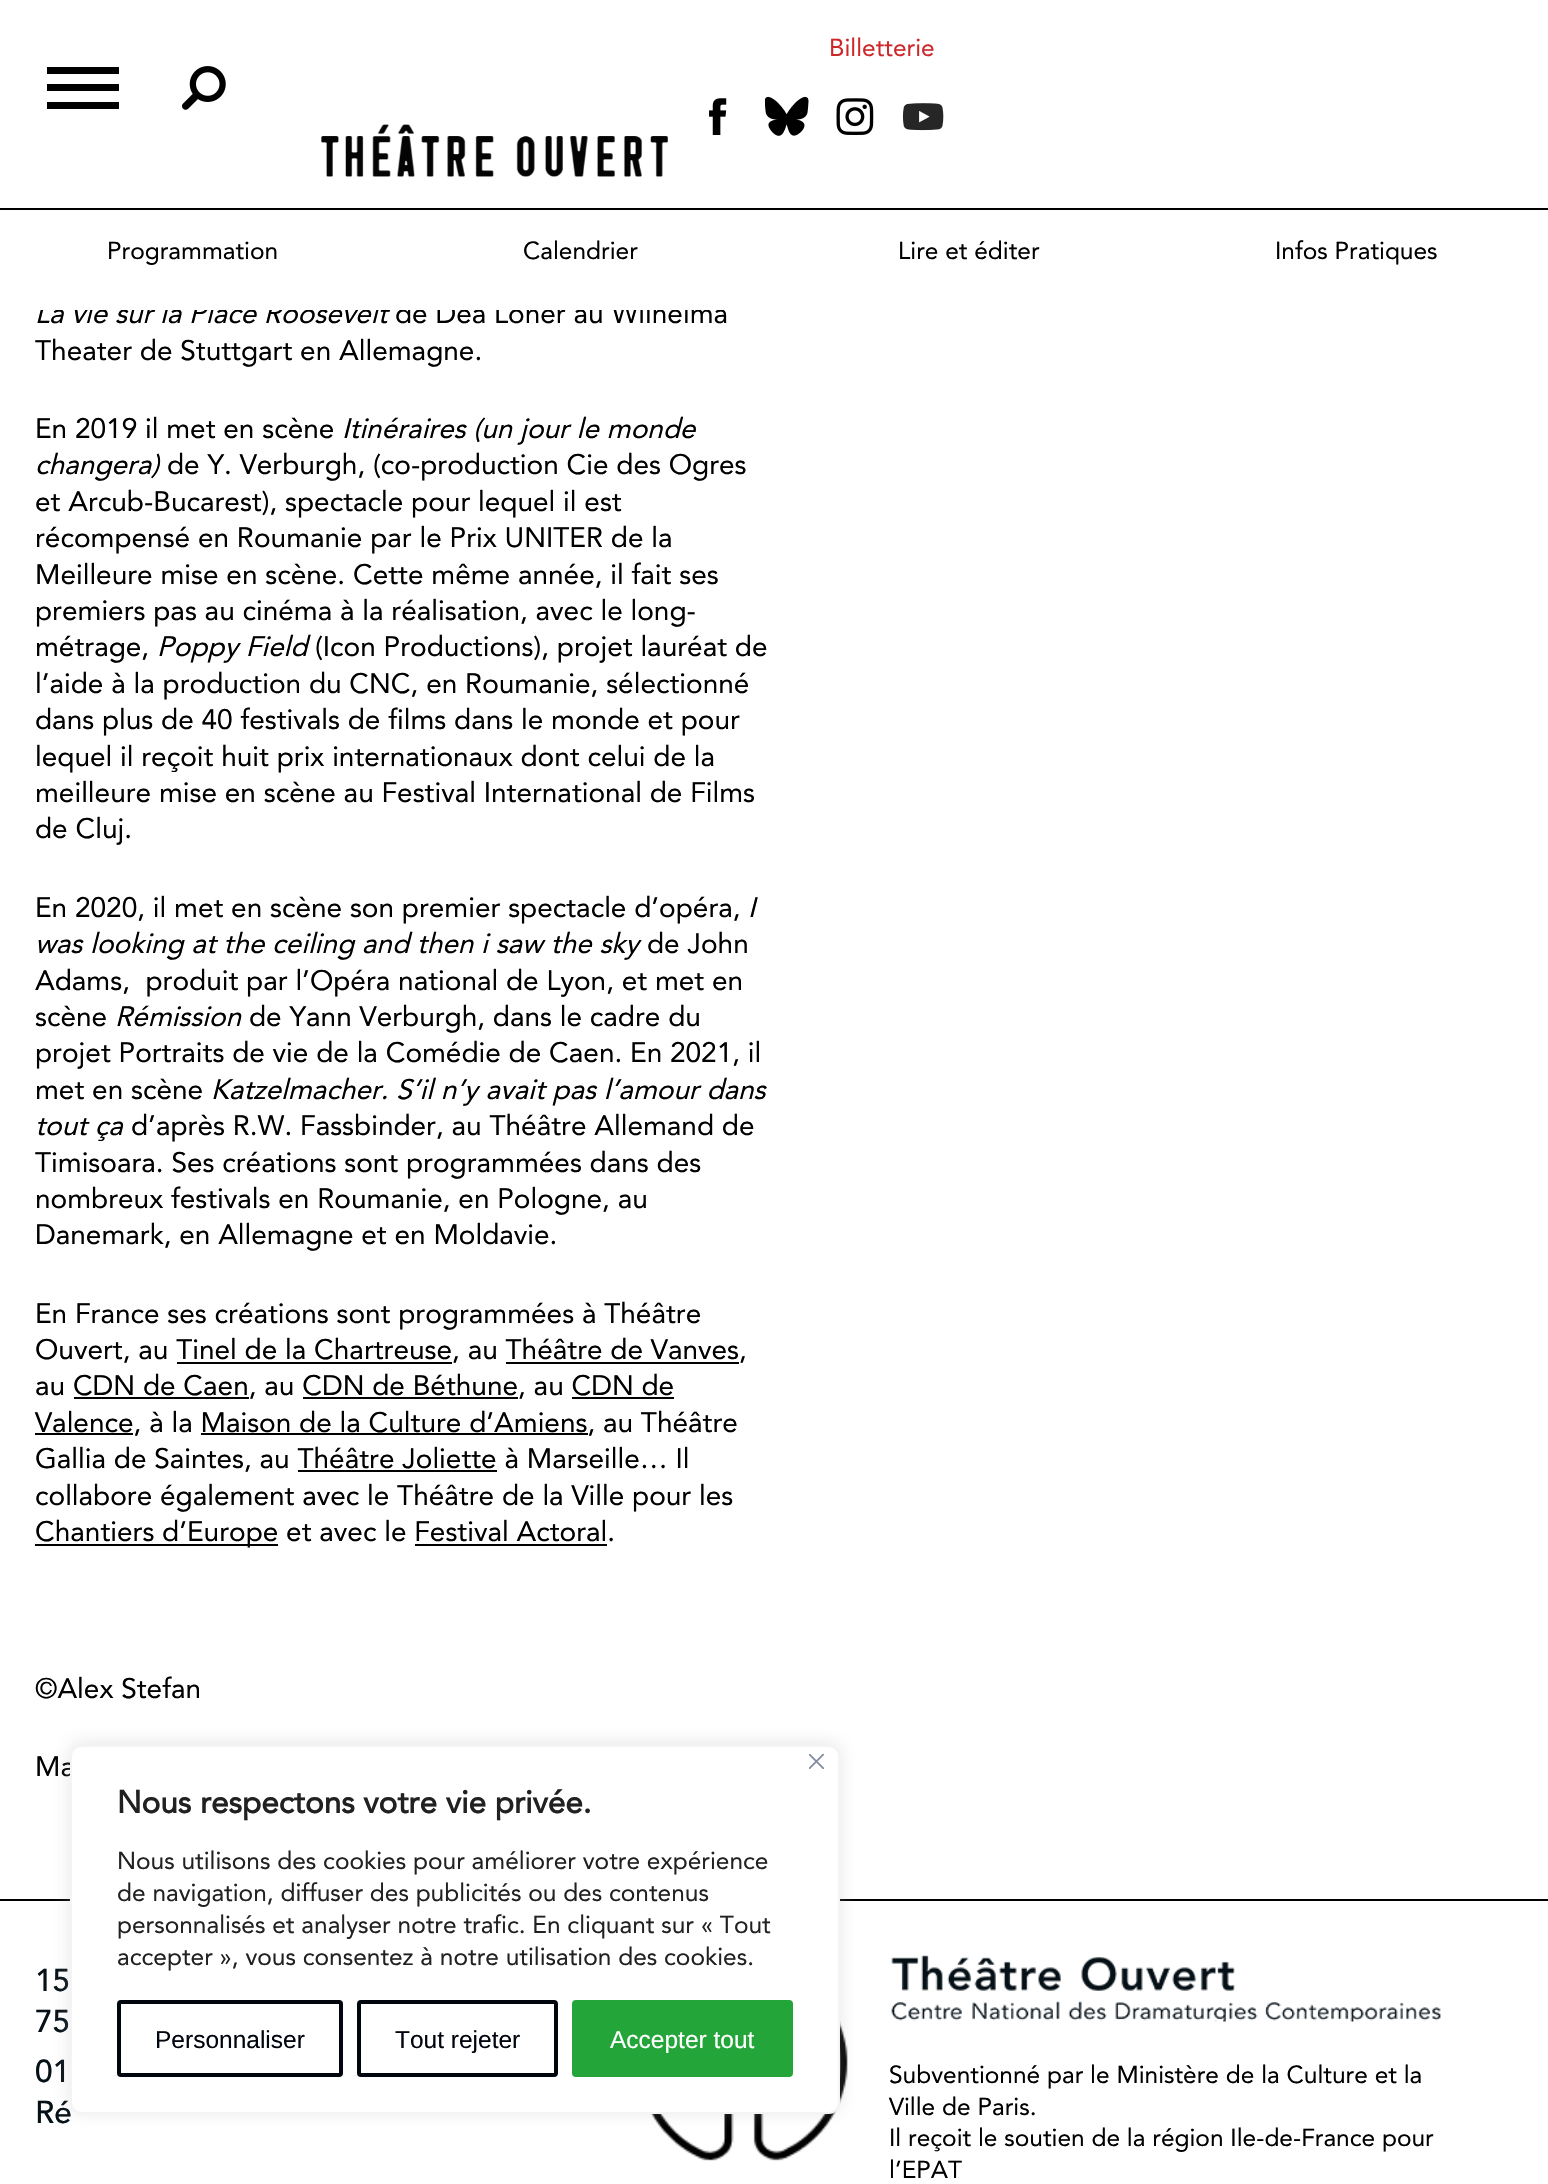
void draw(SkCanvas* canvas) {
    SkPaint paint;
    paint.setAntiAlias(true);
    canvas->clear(0xFFFFFFFF);
    SkFont font1(fontMgr->matchFamilyStyle("Avenir", SkFontStyle::Italic()), 28);
    font1.setSubpixel(true);
    paint.setColor(0xFF000000);
    canvas->drawString("La vie sur la Place Roosevelt", 35, 323, font1, paint);
    SkFont font2(fontMgr->matchFamilyStyle("Avenir", SkFontStyle::Normal()), 28);
    font2.setSubpixel(true);
    canvas->drawString("de Dea Loher au Wilhelma", 395, 323, font2, paint);
    paint.setColor(0xFFFFFFFF);
    canvas->drawRect(SkRect::MakeXYWH(40, 301, 684, 9), paint);
    paint.setColor(0xFF000000);
    canvas->drawRect(SkRect::MakeXYWH(0, 208, 1548, 2), paint);
    SkFont font3(fontMgr->matchFamilyStyle("Avenir", SkFontStyle::Normal()), 24.5f);
    font3.setSubpixel(true);
    paint.setColor(0xFFCD2729);
    canvas->drawString("Billetterie", 829, 56, font3, paint);
    canvas->drawImageRect(SkImages::DeferredFromEncodedData(SkData::MakeFromFileName("img1.png")), SkRect::MakeXYWH(709, 98, 18, 37), SkSamplingOptions());
    canvas->drawImageRect(SkImages::DeferredFromEncodedData(SkData::MakeFromFileName("img2.png")), SkRect::MakeXYWH(765, 96, 44, 40), SkSamplingOptions());
    canvas->drawImageRect(SkImages::DeferredFromEncodedData(SkData::MakeFromFileName("img3.png")), SkRect::MakeXYWH(836, 98, 38, 37), SkSamplingOptions());
    canvas->drawImageRect(SkImages::DeferredFromEncodedData(SkData::MakeFromFileName("img4.png")), SkRect::MakeXYWH(902, 103, 42, 28), SkSamplingOptions());
    paint.setColor(0xFF000000);
    canvas->drawRect(SkRect::MakeXYWH(47, 84, 72, 7), paint);
    canvas->drawRect(SkRect::MakeXYWH(47, 67, 72, 7), paint);
    canvas->drawRect(SkRect::MakeXYWH(47, 102, 72, 7), paint);
    canvas->drawImageRect(SkImages::DeferredFromEncodedData(SkData::MakeFromFileName("img5.png")), SkRect::MakeXYWH(182, 66, 44, 44), SkSamplingOptions());
    canvas->drawImageRect(SkImages::DeferredFromEncodedData(SkData::MakeFromFileName("img6.png")), SkRect::MakeXYWH(321, 124, 347, 53), SkSamplingOptions());
    canvas->drawString("Programmation", 107, 259, font3, paint);
    canvas->drawString("Calendrier", 523, 259, font3, paint);
    canvas->drawString("Lire et éditer", 898, 259, font3, paint);
    canvas->drawString("Infos Pratiques", 1275, 259, font3, paint);
    canvas->drawString("Theater de Stuttgart en Allemagne.", 35, 360, font2, paint);
    canvas->drawString("En 2019 il met en scène", 35, 438, font2, paint);
    canvas->drawString("Itinéraires (un jour le monde", 342, 438, font1, paint);
    canvas->drawString("changera)", 35, 474, font1, paint);
    canvas->drawString("de Y. Verburgh, (co-production Cie des Ogres", 167, 474, font2, paint);
    canvas->drawString("et Arcub-Bucarest), spectacle pour lequel il est", 35, 511, font2, paint);
    canvas->drawString("récompensé en Roumanie par le Prix UNITER de la", 35, 547, font2, paint);
    canvas->drawString("Meilleure mise en scène. Cette même année, il fait ses", 35, 584, font2, paint);
    canvas->drawString("premiers pas au cinéma à la réalisation, avec le long-", 35, 620, font2, paint);
    canvas->drawString("métrage,", 35, 656, font2, paint);
    canvas->drawString("Poppy Field", 157, 656, font1, paint);
    canvas->drawString("(Icon Productions), projet lauréat de", 315, 656, font2, paint);
    canvas->drawString("l’aide à la production du CNC, en Roumanie, sélectionné", 35, 693, font2, paint);
    canvas->drawString("dans plus de 40 festivals de films dans le monde et pour", 35, 729, font2, paint);
    canvas->drawString("lequel il reçoit huit prix internationaux dont celui de la", 35, 766, font2, paint);
    canvas->drawString("meilleure mise en scène au Festival International de Films", 35, 802, font2, paint);
    canvas->drawString("de Cluj.", 35, 838, font2, paint);
    canvas->drawString("En 2020, il met en scène son premier spectacle d’opéra,", 35, 917, font2, paint);
    canvas->drawString("I", 748, 917, font1, paint);
    canvas->drawString("was looking at the ceiling and then i saw the sky", 35, 953, font1, paint);
    canvas->drawString("de John", 647, 953, font2, paint);
    canvas->drawString("Adams,  produit par l’Opéra national de Lyon, et met en", 35, 990, font2, paint);
    canvas->drawString("scène", 35, 1026, font2, paint);
    canvas->drawString("Rémission", 115, 1026, font1, paint);
    canvas->drawString("de Yann Verburgh, dans le cadre du", 249, 1026, font2, paint);
    canvas->drawString("projet Portraits de vie de la Comédie de Caen. En 2021, il", 35, 1062, font2, paint);
    canvas->drawString("met en scène", 35, 1099, font2, paint);
    canvas->drawString("Katzelmacher. S’il n’y avait pas l’amour dans", 211, 1099, font1, paint);
    canvas->drawString("tout ça", 35, 1135, font1, paint);
    canvas->drawString("d’après R.W. Fassbinder, au Théâtre Allemand de", 131, 1135, font2, paint);
    canvas->drawString("Timisoara. Ses créations sont programmées dans des", 35, 1172, font2, paint);
    canvas->drawString("nombreux festivals en Roumanie, en Pologne, au", 35, 1208, font2, paint);
    canvas->drawString("Danemark, en Allemagne et en Moldavie.", 35, 1244, font2, paint);
    canvas->drawString("En France ses créations sont programmées à Théâtre", 35, 1323, font2, paint);
    canvas->drawString("Ouvert, au Tinel de la Chartreuse, au Théâtre de Vanves,", 35, 1359, font2, paint);
    canvas->drawRect(SkRect::MakeXYWH(177, 1362, 275, 2), paint);
    canvas->drawRect(SkRect::MakeXYWH(506, 1362, 233, 2), paint);
    canvas->drawString("au CDN de Caen, au CDN de Béthune, au CDN de", 35, 1395, font2, paint);
    canvas->drawRect(SkRect::MakeXYWH(74, 1397, 175, 2), paint);
    canvas->drawRect(SkRect::MakeXYWH(303, 1397, 215, 2), paint);
    canvas->drawRect(SkRect::MakeXYWH(35, 1433, 98, 2), paint);
    canvas->drawString("Valence, à la Maison de la Culture d’Amiens, au Théâtre", 35, 1432, font2, paint);
    canvas->drawRect(SkRect::MakeXYWH(572, 1397, 102, 2), paint);
    canvas->drawRect(SkRect::MakeXYWH(201, 1433, 387, 2), paint);
    canvas->drawString("Gallia de Saintes, au Théâtre Joliette à Marseille… Il", 35, 1468, font2, paint);
    canvas->drawRect(SkRect::MakeXYWH(298, 1470, 199, 2), paint);
    canvas->drawString("collabore également avec le Théâtre de la Ville pour les", 35, 1505, font2, paint);
    canvas->drawRect(SkRect::MakeXYWH(35, 1544, 243, 2), paint);
    canvas->drawString("Chantiers d’Europe et avec le Festival Actoral.", 35, 1541, font2, paint);
    canvas->drawRect(SkRect::MakeXYWH(415, 1544, 192, 2), paint);
    canvas->drawString("©Alex Stefan", 35, 1698, font2, paint);
    canvas->drawString("Ma", 35, 1776, font2, paint);
    canvas->drawRect(SkRect::MakeXYWH(0, 1899, 1548, 2), paint);
    SkFont font4(fontMgr->matchFamilyStyle("Avenir", SkFontStyle(500, SkFontStyle::kNormal_Width, SkFontStyle::kUpright_Slant)), 31.5f);
    font4.setSubpixel(true);
    paint.setColor(0xFF051017);
    canvas->drawString("15", 35, 1991, font4, paint);
    canvas->drawString("75", 35, 2032, font4, paint);
    canvas->drawString("01", 35, 2082, font4, paint);
    canvas->drawString("Ré", 35, 2123, font4, paint);
    canvas->drawImageRect(SkImages::DeferredFromEncodedData(SkData::MakeFromFileName("img7.png")), SkRect::MakeXYWH(650, 2021, 198, 140), SkSamplingOptions());
    canvas->drawImageRect(SkImages::DeferredFromEncodedData(SkData::MakeFromFileName("img8.png")), SkRect::MakeXYWH(891, 1955, 550, 67), SkSamplingOptions());
    paint.setColor(0xFF000000);
    canvas->drawString("Subventionné par le Ministère de la Culture et la", 889, 2083, font3, paint);
    canvas->drawString("Ville de Paris.", 889, 2115, font3, paint);
    canvas->drawString("Il reçoit le soutien de la région Ile-de-France pour", 889, 2146, font3, paint);
    canvas->drawString("l’EPAT", 889, 2178, font3, paint);
    paint.setColor(0x4DACABAB);
    paint.setMaskFilter(SkMaskFilter::MakeBlur(kNormal_SkBlurStyle, 9));
    canvas->drawRoundRect(SkRect::MakeXYWH(70, 1743, 770, 369), 11, 11, paint);
    paint.setMaskFilter(nullptr);
    paint.setColor(0xFFFFFFFF);
    canvas->drawRoundRect(SkRect::MakeXYWH(71, 1746, 768, 367), 10, 10, paint);
    paint.setStyle(SkPaint::kStroke_Style);
    paint.setStrokeWidth(2);
    paint.setColor(0xFFF4F4F4);
    canvas->drawRoundRect(SkRect::MakeXYWH(71, 1746, 768, 367), 10, 10, paint);
    canvas->drawImageRect(SkImages::DeferredFromEncodedData(SkData::MakeFromFileName("img9.png")), SkRect::MakeXYWH(809, 1754, 15, 15), SkSamplingOptions());
    SkFont font5(fontMgr->matchFamilyStyle("Avenir", SkFontStyle::Bold()), 31.5f);
    font5.setSubpixel(true);
    paint.setStyle(SkPaint::kFill_Style);
    paint.setColor(0xFF212121);
    canvas->drawString("Nous respectons votre vie privée.", 117, 1813, font5, paint);
    canvas->drawString("Nous utilisons des cookies pour améliorer votre expérience", 117, 1869, font3, paint);
    canvas->drawString("de navigation, diffuser des publicités ou des contenus", 117, 1901, font3, paint);
    canvas->drawString("personnalisés et analyser notre trafic. En cliquant sur « Tout", 117, 1933, font3, paint);
    canvas->drawString("accepter », vous consentez à notre utilisation des cookies.", 117, 1965, font3, paint);
    paint.setStyle(SkPaint::kStroke_Style);
    paint.setStrokeWidth(4);
    paint.setColor(0xFF01060E);
    canvas->drawRoundRect(SkRect::MakeXYWH(119, 2002, 222, 73), 2, 2, paint);
    SkFont font6(fontMgr->matchFamilyStyle("Liberation Sans", SkFontStyle::Normal()), 24.5f);
    font6.setSubpixel(true);
    paint.setStyle(SkPaint::kFill_Style);
    canvas->drawString("Personnaliser", 155, 2048, font6, paint);
    paint.setStyle(SkPaint::kStroke_Style);
    canvas->drawRoundRect(SkRect::MakeXYWH(359, 2002, 197, 73), 2, 2, paint);
    paint.setStyle(SkPaint::kFill_Style);
    canvas->drawString("Tout rejeter", 395, 2048, font6, paint);
    paint.setColor(0xFF23A53A);
    canvas->drawRoundRect(SkRect::MakeXYWH(574, 2002, 217, 73), 2, 2, paint);
    paint.setStyle(SkPaint::kStroke_Style);
    canvas->drawRoundRect(SkRect::MakeXYWH(574, 2002, 217, 73), 2, 2, paint);
    paint.setStyle(SkPaint::kFill_Style);
    paint.setColor(0xFFFFFFFF);
    canvas->drawString("Accepter tout", 610, 2048, font6, paint);
}
